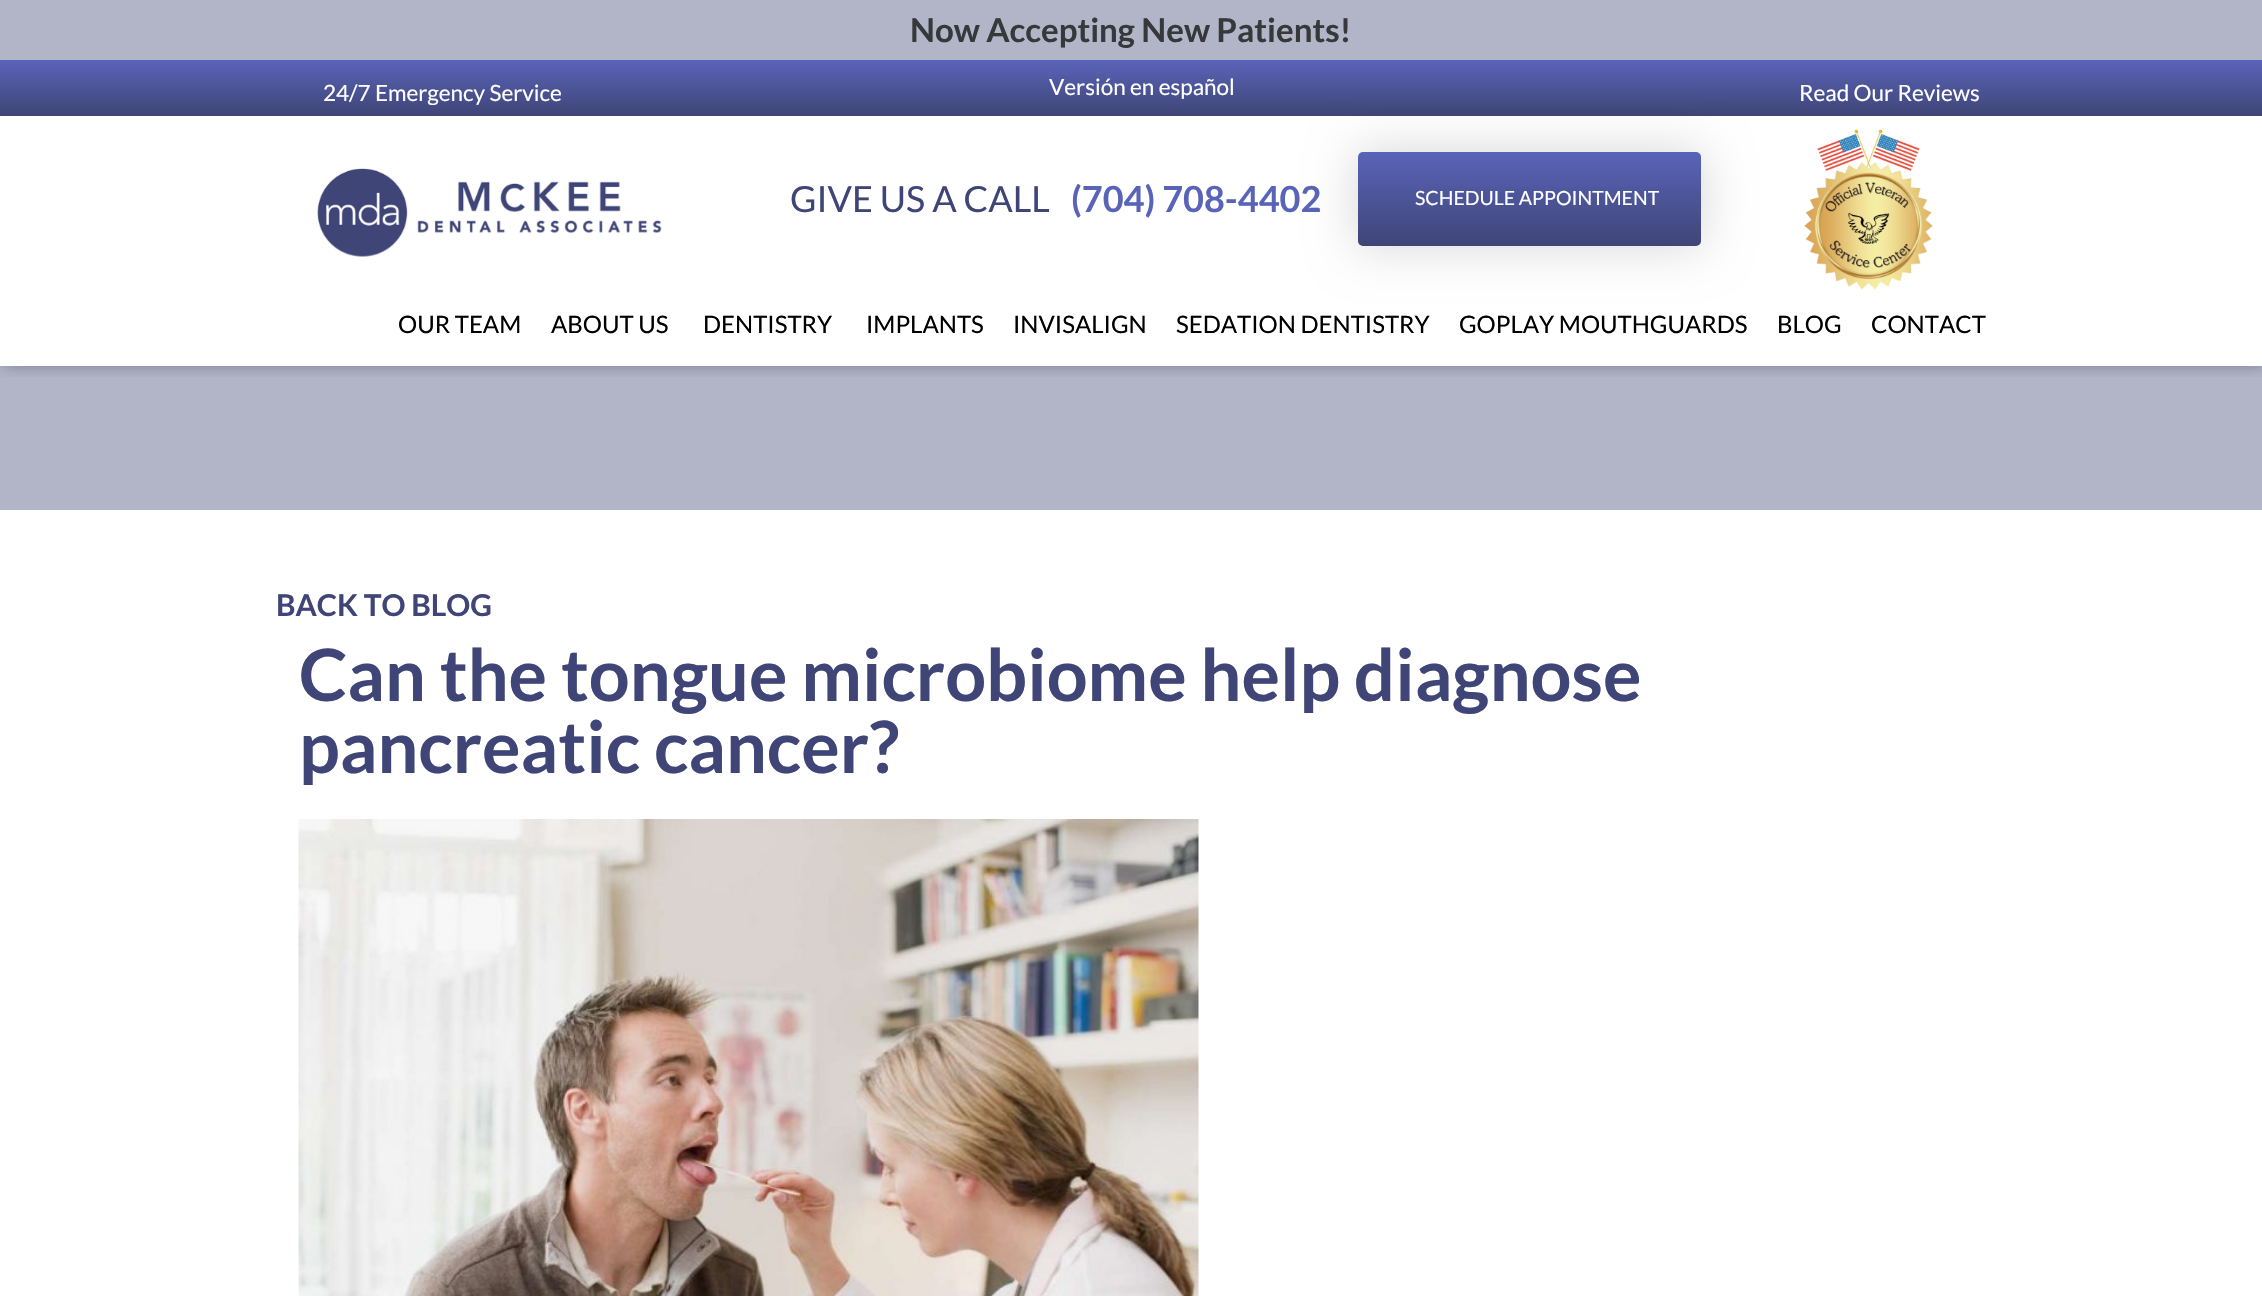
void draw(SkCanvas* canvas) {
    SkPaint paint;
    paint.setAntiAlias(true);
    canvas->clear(0xFFFFFFFF);
    paint.setColor(0xFFB2B4C8);
    canvas->drawRect(SkRect::MakeXYWH(0, 366, 2262, 144), paint);
    canvas->save();
    canvas->clipRect(SkRect::MakeXYWH(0, 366, 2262, 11));
    paint.setColor(0x4A000000);
    paint.setMaskFilter(SkMaskFilter::MakeBlur(kNormal_SkBlurStyle, 7.5f));
    canvas->drawRect(SkRect::MakeXYWH(3, 0, 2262, 366), paint);
    paint.setMaskFilter(nullptr);
    canvas->restore();
    paint.setColor(0xFFB2B4C8);
    canvas->drawRect(SkRect::MakeXYWH(0, 0, 2262, 60), paint);
    SkFont font1(fontMgr->matchFamilyStyle("Lato", SkFontStyle::Bold()), 33);
    font1.setSubpixel(true);
    paint.setColor(0xFF363839);
    canvas->drawString("Now Accepting New Patients!", 910, 42, font1, paint);
    {
        const SkColor colors[] = {0xFF5964B9, 0xFF3F4576};
        const float stops[] = {0, 1};
        const SkPoint ends[] = {{1131, 60}, {1131, 116}};
        paint.setShader(SkGradientShader::MakeLinear(ends, colors, stops, 2, SkTileMode::kClamp));
        paint.setAlpha(255);
    }
    canvas->drawRect(SkRect::MakeXYWH(0, 60, 2262, 56), paint);
    SkFont font2(fontMgr->matchFamilyStyle("Lato", SkFontStyle::Normal()), 22.5f);
    font2.setSubpixel(true);
    paint.setShader(nullptr);
    paint.setColor(0xFFFFFFFF);
    canvas->drawString("24/7 Emergency Service", 323, 101, font2, paint);
    canvas->drawString("Versión en español", 1049, 95, font2, paint);
    canvas->drawString("Read Our Reviews", 1799, 101, font2, paint);
    canvas->drawImageRect(SkImages::DeferredFromEncodedData(SkData::MakeFromFileName("img1.png")), SkRect::MakeXYWH(317, 168, 345, 89), SkSamplingOptions());
    SkFont font3(fontMgr->matchFamilyStyle("Lato", SkFontStyle::Normal()), 36);
    font3.setSubpixel(true);
    paint.setColor(0xFF3F4576);
    canvas->drawString("GIVE US A CALL", 790, 212, font3, paint);
    SkFont font4(fontMgr->matchFamilyStyle("Lato", SkFontStyle::Bold()), 36);
    font4.setSubpixel(true);
    paint.setColor(0xFF5964B9);
    canvas->drawString("(704) 708-4402", 1071, 212, font4, paint);
    paint.setColor(0x26000000);
    paint.setMaskFilter(SkMaskFilter::MakeBlur(kNormal_SkBlurStyle, 24));
    canvas->drawRoundRect(SkRect::MakeXYWH(1356, 150, 347, 98), 6, 6, paint);
    paint.setMaskFilter(nullptr);
    {
        const SkColor colors[] = {0xFF5964B9, 0xFF3F4576};
        const float stops[] = {0, 1};
        const SkPoint ends[] = {{1529, 151}, {1529, 246}};
        paint.setShader(SkGradientShader::MakeLinear(ends, colors, stops, 2, SkTileMode::kClamp));
        paint.setAlpha(255);
    }
    canvas->drawRoundRect(SkRect::MakeXYWH(1358, 152, 343, 94), 5, 5, paint);
    SkFont font5(fontMgr->matchFamilyStyle("Lato", SkFontStyle::Normal()), 19.5f);
    font5.setSubpixel(true);
    paint.setShader(nullptr);
    paint.setColor(0xFFFFFFFF);
    canvas->drawString("SCHEDULE APPOINTMENT", 1415, 205, font5, paint);
    canvas->drawImageRect(SkImages::DeferredFromEncodedData(SkData::MakeFromFileName("img2.png")), SkRect::MakeXYWH(1804, 129, 129, 161), SkSamplingOptions());
    SkFont font6(fontMgr->matchFamilyStyle("Lato", SkFontStyle::Normal()), 24);
    font6.setSubpixel(true);
    paint.setColor(0xFF000000);
    canvas->drawString("OUR TEAM", 398, 333, font6, paint);
    canvas->drawString("ABOUT US", 551, 333, font6, paint);
    canvas->drawString("DENTISTRY", 703, 333, font6, paint);
    canvas->drawString("IMPLANTS", 866, 333, font6, paint);
    canvas->drawString("INVISALIGN", 1013, 333, font6, paint);
    canvas->drawString("SEDATION DENTISTRY", 1176, 333, font6, paint);
    canvas->drawString("GOPLAY MOUTHGUARDS", 1459, 333, font6, paint);
    canvas->drawString("BLOG", 1777, 333, font6, paint);
    canvas->drawString("CONTACT", 1871, 333, font6, paint);
    SkFont font7(fontMgr->matchFamilyStyle("Lato", SkFontStyle::Bold()), 30);
    font7.setSubpixel(true);
    paint.setColor(0xFF3F4576);
    canvas->drawString("BACK TO BLOG", 276, 616, font7, paint);
    SkFont font8(fontMgr->matchFamilyStyle("Lato", SkFontStyle::Bold()), 72);
    font8.setSubpixel(true);
    canvas->drawString("Can the tongue microbiome help diagnose", 299, 701, font8, paint);
    canvas->drawString("pancreatic cancer?", 299, 773, font8, paint);
    canvas->drawImageRect(SkImages::DeferredFromEncodedData(SkData::MakeFromFileName("img3.png")), SkRect::MakeXYWH(298, 819, 901, 477), SkSamplingOptions());
}
